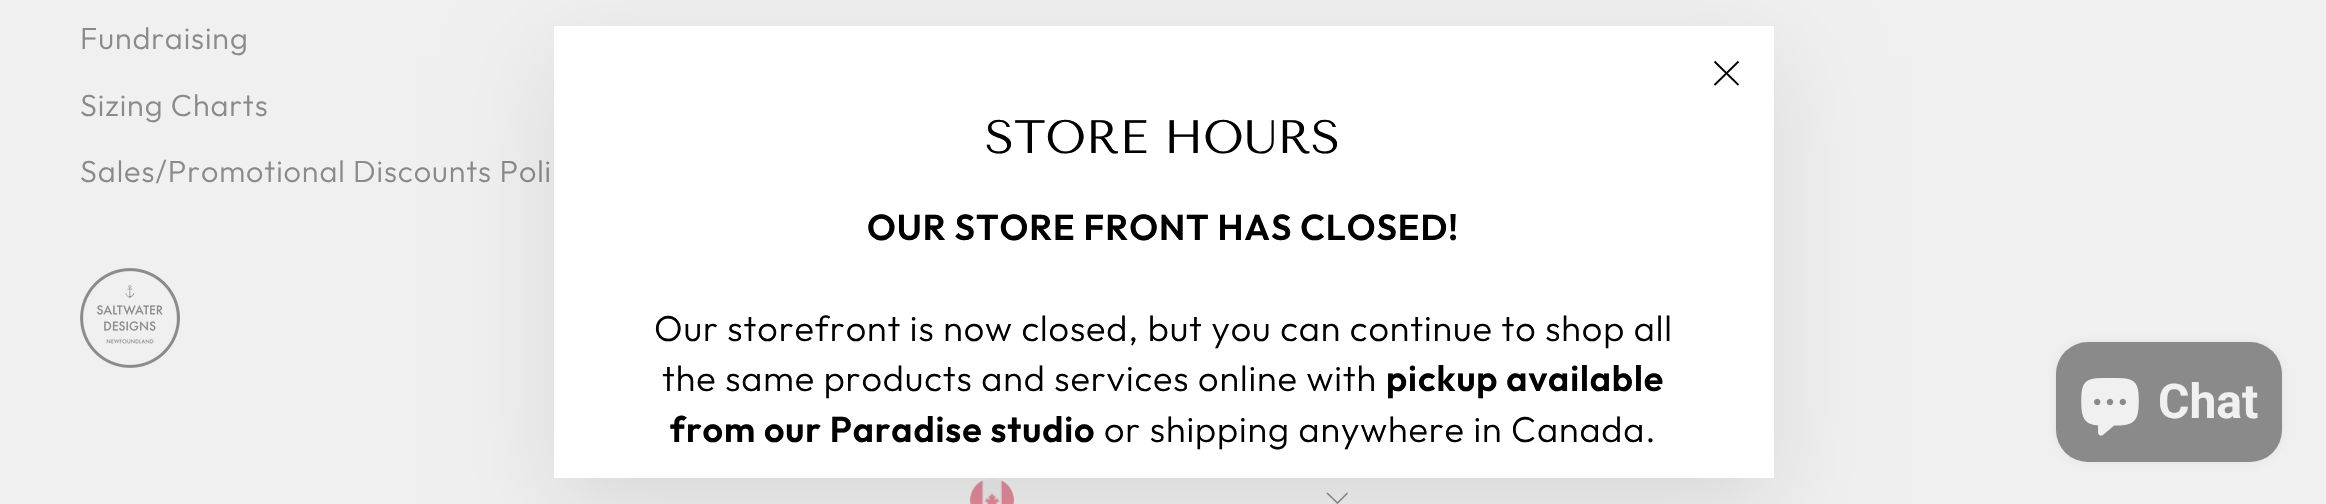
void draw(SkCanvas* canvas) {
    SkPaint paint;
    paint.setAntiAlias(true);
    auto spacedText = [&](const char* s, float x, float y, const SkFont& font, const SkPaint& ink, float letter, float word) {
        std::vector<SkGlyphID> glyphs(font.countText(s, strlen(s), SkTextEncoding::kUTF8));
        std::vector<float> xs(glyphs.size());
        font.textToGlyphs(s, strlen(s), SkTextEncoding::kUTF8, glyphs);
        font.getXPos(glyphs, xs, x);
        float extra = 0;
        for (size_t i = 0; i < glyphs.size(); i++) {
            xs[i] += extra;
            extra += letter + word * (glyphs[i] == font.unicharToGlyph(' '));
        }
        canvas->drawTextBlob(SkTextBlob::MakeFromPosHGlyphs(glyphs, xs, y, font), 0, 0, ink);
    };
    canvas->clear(0xFFF0F0F0);
    SkFont font1(fontMgr->matchFamilyStyle("Outfit", SkFontStyle(300, SkFontStyle::kNormal_Width, SkFontStyle::kUpright_Slant)), 30.6f);
    font1.setSubpixel(true);
    paint.setColor(0xFF8A8A8A);
    spacedText("Fundraising", 80, 49, font1, paint, 0.9f, 0);
    spacedText("Sizing Charts", 80, 116, font1, paint, 0.9f, 0);
    spacedText("Sales/Promotional Discounts Poli", 80, 182, font1, paint, 0.9f, 0);
    canvas->drawImageRect(SkImages::DeferredFromEncodedData(SkData::MakeFromFileName("img1.png")), SkRect::MakeXYWH(80, 268, 100, 100), SkSamplingOptions());
    canvas->drawImageRect(SkImages::DeferredFromEncodedData(SkData::MakeFromFileName("img2.png")), SkRect::MakeXYWH(970, 478, 44, 26), SkSamplingOptions());
    paint.setStyle(SkPaint::kStroke_Style);
    paint.setStrokeWidth(1.6f);
    canvas->drawPath(SkPathBuilder().moveTo(1327, 493).lineTo(1337.5f, 503).lineTo(1347.5f, 493).detach(), paint);
    paint.setStyle(SkPaint::kFill_Style);
    paint.setColor(0x1A000000);
    paint.setMaskFilter(SkMaskFilter::MakeBlur(kNormal_SkBlurStyle, 45));
    canvas->drawRect(SkRect::MakeXYWH(554, 56, 1220, 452), paint);
    paint.setMaskFilter(nullptr);
    paint.setColor(0xFFFFFFFF);
    canvas->drawRect(SkRect::MakeXYWH(554, 26, 1220, 452), paint);
    paint.setStyle(SkPaint::kStroke_Style);
    paint.setStrokeWidth(1.8f);
    paint.setColor(0xFF000000);
    canvas->drawPath(SkPathBuilder().moveTo(1714.5f, 61.5f).lineTo(1738.5f, 85).moveTo(1738.5f, 61.5f).lineTo(1714.5f, 85).detach(), paint);
    SkFont font2(fontMgr->matchFamilyStyle("Tenor Sans", SkFontStyle::Normal()), 46.75f);
    font2.setSubpixel(true);
    paint.setStyle(SkPaint::kFill_Style);
    canvas->drawString("STORE HOURS", 985, 153, font2, paint);
    SkFont font3(fontMgr->matchFamilyStyle("Outfit", SkFontStyle(600, SkFontStyle::kNormal_Width, SkFontStyle::kUpright_Slant)), 36);
    font3.setSubpixel(true);
    spacedText("OUR STORE FRONT HAS CLOSED!", 867, 240, font3, paint, 0.9f, 0);
    SkFont font4(fontMgr->matchFamilyStyle("Outfit", SkFontStyle(300, SkFontStyle::kNormal_Width, SkFontStyle::kUpright_Slant)), 36);
    font4.setSubpixel(true);
    spacedText("Our storefront is now closed, but you can continue to shop all", 654, 341, font4, paint, 0.9f, 0);
    spacedText("the same products and services online with", 662, 391, font4, paint, 0.9f, 0);
    spacedText("pickup available", 1386, 391, font3, paint, 0.9f, 0);
    spacedText("from our Paradise studio", 670, 442, font3, paint, 0.9f, 0);
    spacedText("or shipping anywhere in Canada.", 1104, 442, font4, paint, 0.9f, 0);
    paint.setColor(0x268A8A8A);
    paint.setMaskFilter(SkMaskFilter::MakeBlur(kNormal_SkBlurStyle, 5));
    canvas->drawRoundRect(SkRect::MakeXYWH(2056, 342, 226, 120), 32, 32, paint);
    paint.setMaskFilter(nullptr);
    paint.setColor(0xFF8A8A8A);
    canvas->drawRoundRect(SkRect::MakeXYWH(2056, 342, 226, 120), 32, 32, paint);
    canvas->drawImageRect(SkImages::DeferredFromEncodedData(SkData::MakeFromFileName("img3.png")), SkRect::MakeXYWH(2081, 378, 58, 58), SkSamplingOptions());
    SkFont font5(fontMgr->matchFamilyStyle("Roboto", SkFontStyle::Bold()), 48);
    font5.setSubpixel(true);
    paint.setColor(0xFFF0F0F0);
    canvas->drawString("Chat", 2158, 418, font5, paint);
}
